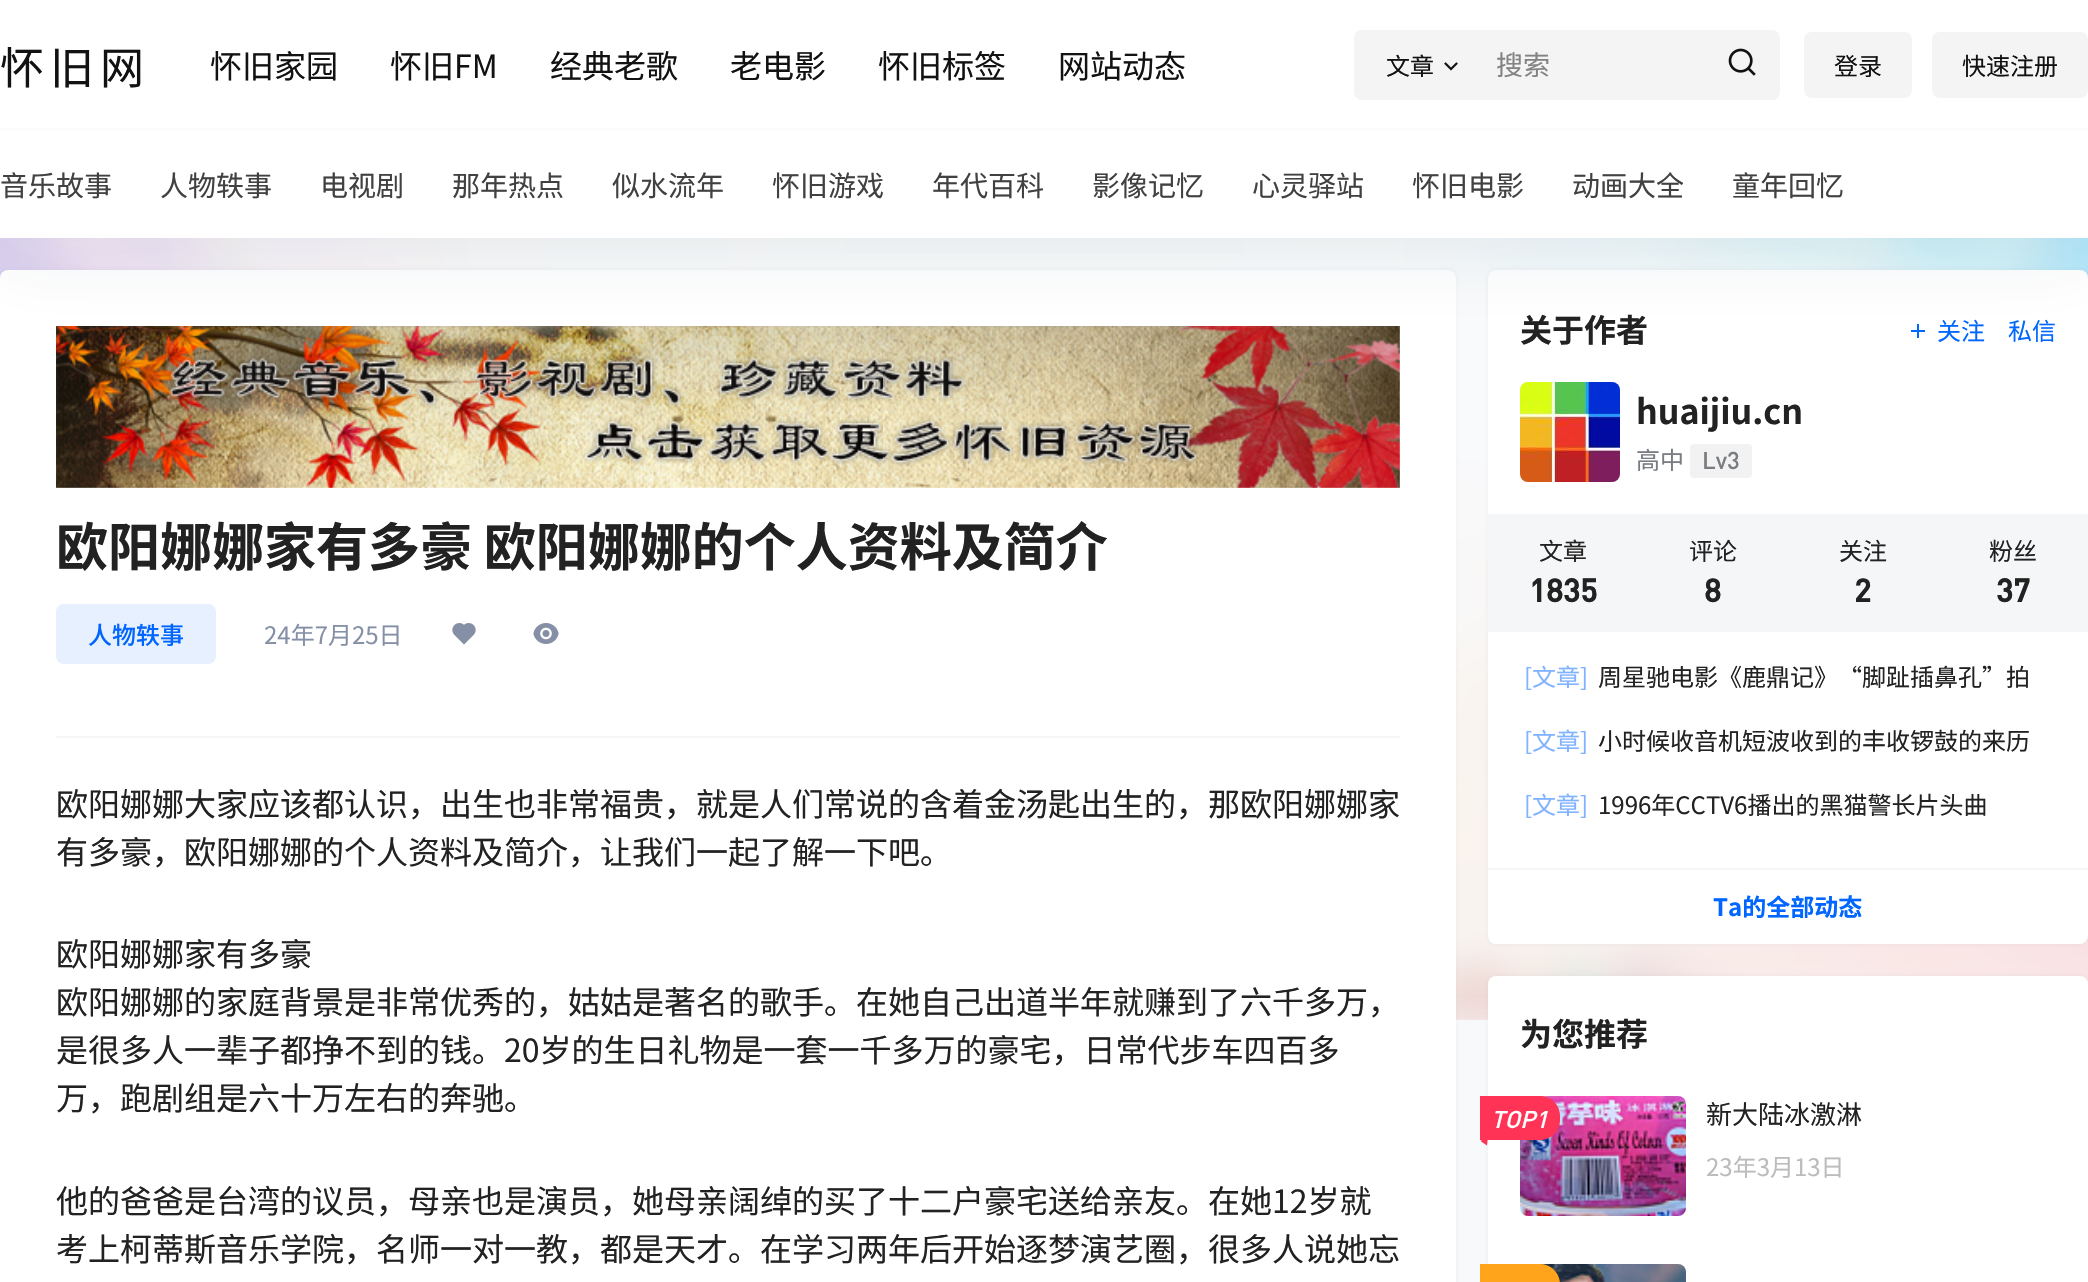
void draw(SkCanvas* canvas) {
    SkPaint paint;
    paint.setAntiAlias(true);
    auto spacedText = [&](const char* s, float x, float y, const SkFont& font, const SkPaint& ink, float letter, float word) {
        std::vector<SkGlyphID> glyphs(font.countText(s, strlen(s), SkTextEncoding::kUTF8));
        std::vector<float> xs(glyphs.size());
        font.textToGlyphs(s, strlen(s), SkTextEncoding::kUTF8, glyphs);
        font.getXPos(glyphs, xs, x);
        float extra = 0;
        for (size_t i = 0; i < glyphs.size(); i++) {
            xs[i] += extra;
            extra += letter + word * (glyphs[i] == font.unicharToGlyph(' '));
        }
        canvas->drawTextBlob(SkTextBlob::MakeFromPosHGlyphs(glyphs, xs, y, font), 0, 0, ink);
    };
    canvas->clear(0xFFF7F9FA);
    canvas->drawImageRect(SkImages::DeferredFromEncodedData(SkData::MakeFromFileName("img1.png")), SkRect::MakeXYWH(0, 238, 2088, 782), SkSamplingOptions());
    paint.setColor(0x26F7F9FA);
    paint.setMaskFilter(SkMaskFilter::MakeBlur(kNormal_SkBlurStyle, 20));
    canvas->drawRect(SkRect::MakeXYWH(-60, -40, 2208, 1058), paint);
    paint.setMaskFilter(nullptr);
    paint.setColor(0x1A627C99);
    paint.setMaskFilter(SkMaskFilter::MakeBlur(kNormal_SkBlurStyle, 2));
    canvas->drawRoundRect(SkRect::MakeXYWH(0, 270, 1456, 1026), 8, 8, paint);
    paint.setMaskFilter(nullptr);
    paint.setColor(0xFFFFFFFF);
    canvas->drawRoundRect(SkRect::MakeXYWH(0, 270, 1456, 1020), 8, 8, paint);
    canvas->drawImageRect(SkImages::DeferredFromEncodedData(SkData::MakeFromFileName("img4.png")), SkRect::MakeXYWH(56, 326, 1344, 162), SkSamplingOptions());
    paint.setColor(0x1A627C99);
    paint.setMaskFilter(SkMaskFilter::MakeBlur(kNormal_SkBlurStyle, 2));
    canvas->drawRoundRect(SkRect::MakeXYWH(1488, 270, 600, 674), 8, 8, paint);
    paint.setMaskFilter(nullptr);
    paint.setColor(0xFFFFFFFF);
    canvas->drawRoundRect(SkRect::MakeXYWH(1488, 270, 600, 674), 8, 8, paint);
    canvas->drawImageRect(SkImages::DeferredFromEncodedData(SkData::MakeFromFileName("img7.png")), SkRect::MakeXYWH(1911, 324, 14, 14), SkSamplingOptions());
    paint.setColor(0x1A113A5D);
    paint.setMaskFilter(SkMaskFilter::MakeBlur(kNormal_SkBlurStyle, 40));
    canvas->drawRect(SkRect::MakeXYWH(0, 10, 2088, 238), paint);
    paint.setMaskFilter(nullptr);
    paint.setColor(0xFFFFFFFF);
    canvas->drawRect(SkRect::MakeXYWH(0, 0, 2088, 128), paint);
    SkFont font1(fontMgr->matchFamilyStyle("Noto Sans CJK SC", SkFontStyle::Normal()), 44);
    font1.setSubpixel(true);
    paint.setColor(0xFF121212);
    spacedText("怀旧网", 0, 84, font1, paint, 6, 0);
    SkFont font2(fontMgr->matchFamilyStyle("Noto Sans CJK SC", SkFontStyle::Normal()), 32);
    font2.setSubpixel(true);
    canvas->drawString("怀旧家园", 210, 78, font2, paint);
    canvas->drawString("怀旧FM", 390, 78, font2, paint);
    canvas->drawString("经典老歌", 550, 78, font2, paint);
    canvas->drawString("老电影", 730, 78, font2, paint);
    canvas->drawString("怀旧标签", 878, 78, font2, paint);
    canvas->drawString("网站动态", 1058, 78, font2, paint);
    paint.setColor(0xFFF4F4F4);
    canvas->drawRoundRect(SkRect::MakeXYWH(1354, 30, 426, 70), 8, 8, paint);
    SkFont font3(fontMgr->matchFamilyStyle("Noto Sans CJK SC", SkFontStyle::Normal()), 24);
    font3.setSubpixel(true);
    paint.setColor(0xFF121212);
    canvas->drawString("文章", 1386, 75, font3, paint);
    canvas->drawImageRect(SkImages::DeferredFromEncodedData(SkData::MakeFromFileName("img2.png")), SkRect::MakeXYWH(1444, 62, 14, 9), SkSamplingOptions());
    SkFont font4(fontMgr->matchFamilyStyle("Noto Sans CJK SC", SkFontStyle::Normal()), 27);
    font4.setSubpixel(true);
    paint.setColor(0xFF838383);
    canvas->drawString("搜索", 1496, 75, font4, paint);
    canvas->drawImageRect(SkImages::DeferredFromEncodedData(SkData::MakeFromFileName("img3.png")), SkRect::MakeXYWH(1728, 48, 28, 28), SkSamplingOptions());
    paint.setColor(0xFFF4F4F4);
    canvas->drawRoundRect(SkRect::MakeXYWH(1804, 32, 108, 66), 8, 8, paint);
    paint.setColor(0xFF121212);
    canvas->drawString("登录", 1834, 75, font3, paint);
    paint.setColor(0xFFF4F4F4);
    canvas->drawRoundRect(SkRect::MakeXYWH(1932, 32, 156, 66), 8, 8, paint);
    paint.setColor(0xFF121212);
    canvas->drawString("快速注册", 1962, 75, font3, paint);
    paint.setColor(0xFFFFFFFF);
    canvas->drawRect(SkRect::MakeXYWH(0, 130, 2088, 108), paint);
    paint.setColor(0xFFFCFCFC);
    canvas->drawRect(SkRect::MakeXYWH(0, 128, 2088, 2), paint);
    SkFont font5(fontMgr->matchFamilyStyle("Noto Sans CJK SC", SkFontStyle::Normal()), 28);
    font5.setSubpixel(true);
    paint.setColor(0xFF414141);
    canvas->drawString("音乐故事", 0, 196, font5, paint);
    canvas->drawString("人物轶事", 160, 196, font5, paint);
    canvas->drawString("电视剧", 320, 196, font5, paint);
    canvas->drawString("那年热点", 452, 196, font5, paint);
    canvas->drawString("似水流年", 612, 196, font5, paint);
    canvas->drawString("怀旧游戏", 772, 196, font5, paint);
    canvas->drawString("年代百科", 932, 196, font5, paint);
    canvas->drawString("影像记忆", 1092, 196, font5, paint);
    canvas->drawString("心灵驿站", 1252, 196, font5, paint);
    canvas->drawString("怀旧电影", 1412, 196, font5, paint);
    canvas->drawString("动画大全", 1572, 196, font5, paint);
    canvas->drawString("童年回忆", 1732, 196, font5, paint);
    paint.setColor(0xFFF5F6F7);
    canvas->drawRect(SkRect::MakeXYWH(56, 736, 1344, 2), paint);
    SkFont font6(fontMgr->matchFamilyStyle("Noto Sans CJK SC", SkFontStyle::Bold()), 52);
    font6.setSubpixel(true);
    paint.setColor(0xFF222222);
    canvas->drawString("欧阳娜娜家有多豪 欧阳娜娜的个人资料及简介", 56, 566, font6, paint);
    paint.setColor(0xFFE6F0FF);
    canvas->drawRoundRect(SkRect::MakeXYWH(56, 604, 160, 60), 8, 8, paint);
    SkFont font7(fontMgr->matchFamilyStyle("Noto Sans CJK SC", SkFontStyle(500, SkFontStyle::kNormal_Width, SkFontStyle::kUpright_Slant)), 24);
    font7.setSubpixel(true);
    paint.setColor(0xFF0066FF);
    canvas->drawString("人物轶事", 88, 644, font7, paint);
    paint.setColor(0xFF8590A6);
    canvas->drawString("24年7月25日", 264, 644, font3, paint);
    canvas->drawImageRect(SkImages::DeferredFromEncodedData(SkData::MakeFromFileName("img5.png")), SkRect::MakeXYWH(452, 623, 24, 22), SkSamplingOptions());
    canvas->drawImageRect(SkImages::DeferredFromEncodedData(SkData::MakeFromFileName("img6.png")), SkRect::MakeXYWH(533, 623, 26, 21), SkSamplingOptions());
    paint.setColor(0xFF222222);
    canvas->drawString("欧阳娜娜大家应该都认识，出生也非常福贵，就是人们常说的含着金汤匙出生的，那欧阳娜娜家", 56, 816, font2, paint);
    canvas->drawString("有多豪，欧阳娜娜的个人资料及简介，让我们一起了解一下吧。", 56, 864, font2, paint);
    canvas->drawString("欧阳娜娜家有多豪", 56, 966, font2, paint);
    canvas->drawString("欧阳娜娜的家庭背景是非常优秀的，姑姑是著名的歌手。在她自己出道半年就赚到了六千多万，", 56, 1014, font2, paint);
    canvas->drawString("是很多人一辈子都挣不到的钱。20岁的生日礼物是一套一千多万的豪宅，日常代步车四百多", 56, 1062, font2, paint);
    canvas->drawString("万，跑剧组是六十万左右的奔驰。", 56, 1110, font2, paint);
    canvas->drawString("他的爸爸是台湾的议员，母亲也是演员，她母亲阔绰的买了十二户豪宅送给亲友。在她12岁就", 56, 1213, font2, paint);
    canvas->drawString("考上柯蒂斯音乐学院，名师一对一教，都是天才。在学习两年后开始逐梦演艺圈，很多人说她忘", 56, 1261, font2, paint);
    SkFont font8(fontMgr->matchFamilyStyle("Noto Sans CJK SC", SkFontStyle::Bold()), 32);
    font8.setSubpixel(true);
    canvas->drawString("关于作者", 1520, 342, font8, paint);
    paint.setColor(0xFF0066FF);
    canvas->drawString("关注", 1937, 340, font3, paint);
    canvas->drawString("私信", 2008, 340, font3, paint);
    paint.setColor(0xFFEEEEEE);
    canvas->drawRoundRect(SkRect::MakeXYWH(1520, 382, 100, 100), 8, 8, paint);
    canvas->drawImageRect(SkImages::DeferredFromEncodedData(SkData::MakeFromFileName("img8.png")), SkRect::MakeXYWH(1520, 382, 100, 100), SkSamplingOptions());
    SkFont font9(fontMgr->matchFamilyStyle("Noto Sans CJK SC", SkFontStyle::Bold()), 34);
    font9.setSubpixel(true);
    paint.setColor(0xFF222222);
    canvas->drawString("huaijiu.cn", 1636, 424, font9, paint);
    paint.setColor(0xFF797C80);
    canvas->drawString("高中", 1636, 469, font3, paint);
    paint.setColor(0xFFF2F2F2);
    canvas->drawRoundRect(SkRect::MakeXYWH(1690, 444, 62, 34), 4, 4, paint);
    SkFont font10(fontMgr->matchFamilyStyle("DIN", SkFontStyle(500, SkFontStyle::kNormal_Width, SkFontStyle::kUpright_Slant)), 24);
    font10.setSubpixel(true);
    paint.setColor(0xFF797C80);
    canvas->drawString("Lv3", 1702, 469, font10, paint);
    paint.setColor(0xFFF5F6F7);
    canvas->drawRect(SkRect::MakeXYWH(1488, 514, 600, 118), paint);
    paint.setColor(0xFF222222);
    canvas->drawString("文章", 1539, 560, font3, paint);
    SkFont font11(fontMgr->matchFamilyStyle("DIN", SkFontStyle::Bold()), 32);
    font11.setSubpixel(true);
    canvas->drawString("1835", 1529, 602, font11, paint);
    canvas->drawString("评论", 1689, 560, font3, paint);
    canvas->drawString("8", 1704, 602, font11, paint);
    canvas->drawString("关注", 1839, 560, font3, paint);
    canvas->drawString("2", 1854, 602, font11, paint);
    canvas->drawString("粉丝", 1989, 560, font3, paint);
    canvas->drawString("37", 1996, 602, font11, paint);
    paint.setColor(0xFF80B3FF);
    canvas->drawString("[文章]", 1524, 686, font3, paint);
    paint.setColor(0xFF222222);
    canvas->drawString("周星驰电影《鹿鼎记》“脚趾插鼻孔”拍", 1598, 686, font3, paint);
    paint.setColor(0xFF80B3FF);
    canvas->drawString("[文章]", 1524, 750, font3, paint);
    paint.setColor(0xFF222222);
    canvas->drawString("小时候收音机短波收到的丰收锣鼓的来历", 1598, 750, font3, paint);
    paint.setColor(0xFF80B3FF);
    canvas->drawString("[文章]", 1524, 814, font3, paint);
    paint.setColor(0xFF222222);
    canvas->drawString("1996年CCTV6播出的黑猫警长片头曲", 1598, 814, font3, paint);
    paint.setColor(0xFFF5F6F7);
    canvas->drawRect(SkRect::MakeXYWH(1488, 868, 600, 2), paint);
    SkFont font12(fontMgr->matchFamilyStyle("Noto Sans CJK SC", SkFontStyle::Bold()), 24);
    font12.setSubpixel(true);
    paint.setColor(0xFF0066FF);
    canvas->drawString("Ta的全部动态", 1713, 916, font12, paint);
    paint.setColor(0x1A627C99);
    paint.setMaskFilter(SkMaskFilter::MakeBlur(kNormal_SkBlurStyle, 2));
    canvas->drawRoundRect(SkRect::MakeXYWH(1488, 976, 600, 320), 8, 8, paint);
    paint.setMaskFilter(nullptr);
    paint.setColor(0xFFFFFFFF);
    canvas->drawRoundRect(SkRect::MakeXYWH(1488, 976, 600, 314), 8, 8, paint);
    paint.setColor(0xFF222222);
    canvas->drawString("为您推荐", 1520, 1046, font8, paint);
    canvas->drawImageRect(SkImages::DeferredFromEncodedData(SkData::MakeFromFileName("img9.png")), SkRect::MakeXYWH(1520, 1096, 166, 120), SkSamplingOptions());
    paint.setColor(0xFFFF3355);
    canvas->drawPath(SkPathBuilder().moveTo(1480, 1096).lineTo(1540, 1096).cubicTo(1551, 1096, 1560, 1105, 1560, 1116).lineTo(1560, 1120).cubicTo(1560, 1131, 1551, 1140, 1540, 1140).lineTo(1480, 1140).close().detach(), paint);
    SkFont font13(fontMgr->matchFamilyStyle("DIN", SkFontStyle(500, SkFontStyle::kNormal_Width, SkFontStyle::kItalic_Slant)), 24);
    font13.setSubpixel(true);
    paint.setColor(0xFFFFFFFF);
    canvas->drawString("TOP1", 1491, 1128, font13, paint);
    paint.setColor(0xFFFF3355);
    canvas->drawPath(SkPathBuilder().moveTo(1487, 1145.5f).lineTo(1480.5f, 1141).lineTo(1488, 1136.5f).close().detach(), paint);
    SkFont font14(fontMgr->matchFamilyStyle("Noto Sans CJK SC", SkFontStyle::Normal()), 26);
    font14.setSubpixel(true);
    paint.setColor(0xFF222222);
    canvas->drawString("新大陆冰激淋", 1706, 1124, font14, paint);
    paint.setColor(0xFFBCBCBC);
    canvas->drawString("23年3月13日", 1706, 1176, font3, paint);
    canvas->drawImageRect(SkImages::DeferredFromEncodedData(SkData::MakeFromFileName("img10.png")), SkRect::MakeXYWH(1540, 1264, 146, 18), SkSamplingOptions());
    paint.setColor(0xFFFFA41B);
    canvas->drawPath(SkPathBuilder().moveTo(1480, 1264).lineTo(1540, 1264).cubicTo(1551, 1264, 1560, 1273, 1560, 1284).lineTo(1560, 1282).cubicTo(1560, 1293, 1551, 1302, 1540, 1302).lineTo(1480, 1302).close().detach(), paint);
}
